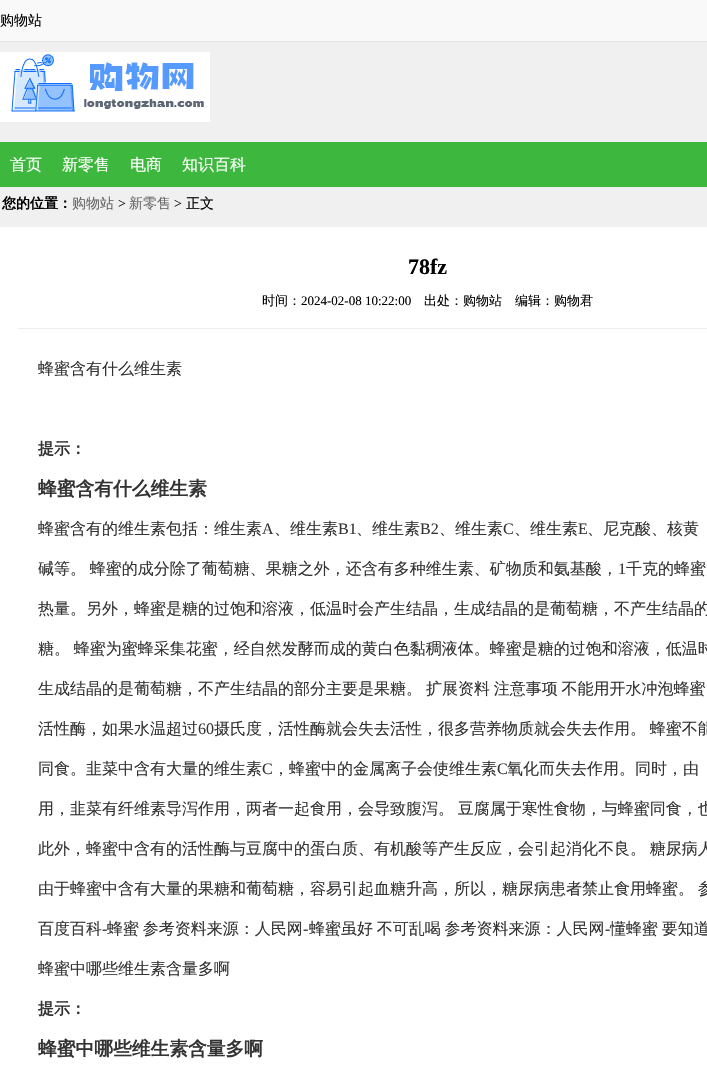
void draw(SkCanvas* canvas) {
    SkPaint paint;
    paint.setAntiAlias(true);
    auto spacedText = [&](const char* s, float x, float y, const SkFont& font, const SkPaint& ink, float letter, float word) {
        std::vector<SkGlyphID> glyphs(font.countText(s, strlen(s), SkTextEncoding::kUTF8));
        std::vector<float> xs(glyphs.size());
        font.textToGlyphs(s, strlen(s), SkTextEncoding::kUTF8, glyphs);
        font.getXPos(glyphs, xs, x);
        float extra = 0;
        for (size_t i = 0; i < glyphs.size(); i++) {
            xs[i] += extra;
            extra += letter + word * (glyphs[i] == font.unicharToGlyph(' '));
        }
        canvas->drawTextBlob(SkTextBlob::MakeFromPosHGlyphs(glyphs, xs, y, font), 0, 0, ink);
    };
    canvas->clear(0xFFF0F0F0);
    paint.setColor(0xFFF9F9F9);
    canvas->drawRect(SkRect::MakeXYWH(0, 0, 707, 41), paint);
    paint.setColor(0xFFE3E3E3);
    canvas->drawRect(SkRect::MakeXYWH(0, 41, 707, 1), paint);
    SkFont font1(fontMgr->matchFamilyStyle("WenQuanYi Zen Hei", SkFontStyle(500, SkFontStyle::kNormal_Width, SkFontStyle::kUpright_Slant)), 14);
    font1.setSubpixel(true);
    paint.setColor(0xFF000000);
    canvas->drawString("购物站", 0, 25, font1, paint);
    canvas->drawImageRect(SkImages::DeferredFromEncodedData(SkData::MakeFromFileName("img1.png")), SkRect::MakeXYWH(0, 52, 210, 70), SkSamplingOptions());
    paint.setColor(0xFF3DB73D);
    canvas->drawRect(SkRect::MakeXYWH(0, 142, 707, 45), paint);
    SkFont font2(fontMgr->matchFamilyStyle("WenQuanYi Zen Hei", SkFontStyle(500, SkFontStyle::kNormal_Width, SkFontStyle::kUpright_Slant)), 16);
    font2.setSubpixel(true);
    paint.setColor(0xFFFFFFFF);
    canvas->drawString("首页", 10, 170, font2, paint);
    canvas->drawString("新零售", 62, 170, font2, paint);
    canvas->drawString("电商", 130, 170, font2, paint);
    canvas->drawString("知识百科", 182, 170, font2, paint);
    SkFont font3(fontMgr->matchFamilyStyle("WenQuanYi Zen Hei", SkFontStyle::Bold()), 14);
    font3.setSubpixel(true);
    paint.setColor(0xFF000000);
    canvas->drawString("您的位置：", 2, 208, font3, paint);
    paint.setColor(0xFF666666);
    canvas->drawString("购物站", 72, 208, font1, paint);
    SkFont font4(fontMgr->matchFamilyStyle("Liberation Serif", SkFontStyle::Normal()), 14);
    font4.setSubpixel(true);
    paint.setColor(0xFF000000);
    canvas->drawString(">", 118, 208, font4, paint);
    paint.setColor(0xFF666666);
    canvas->drawString("新零售", 129, 208, font1, paint);
    paint.setColor(0xFF000000);
    canvas->drawString(">", 174, 208, font4, paint);
    canvas->drawString("正文", 186, 208, font1, paint);
    paint.setColor(0xFFFFFFFF);
    canvas->drawRect(SkRect::MakeXYWH(0, 227, 707, 851), paint);
    paint.setColor(0xFFEEEEEE);
    canvas->drawRect(SkRect::MakeXYWH(18, 328, 689, 1), paint);
    SkFont font5(fontMgr->matchFamilyStyle("Liberation Serif", SkFontStyle::Bold()), 22);
    font5.setSubpixel(true);
    paint.setColor(0xFF000000);
    canvas->drawString("78fz", 408, 274, font5, paint);
    SkFont font6(fontMgr->matchFamilyStyle("WenQuanYi Zen Hei", SkFontStyle(500, SkFontStyle::kNormal_Width, SkFontStyle::kUpright_Slant)), 13);
    font6.setSubpixel(true);
    canvas->drawString("时间：", 262, 305, font6, paint);
    SkFont font7(fontMgr->matchFamilyStyle("Liberation Serif", SkFontStyle::Normal()), 13);
    font7.setSubpixel(true);
    canvas->drawString("2024-02-08 10:22:00", 301, 305, font7, paint);
    canvas->drawString("出处：购物站", 424, 305, font6, paint);
    canvas->drawString("编辑：购物君", 515, 305, font6, paint);
    paint.setColor(0xFF333333);
    canvas->drawString("蜂蜜含有什么维生素", 38, 374, font2, paint);
    SkFont font8(fontMgr->matchFamilyStyle("WenQuanYi Zen Hei", SkFontStyle::Bold()), 16);
    font8.setSubpixel(true);
    canvas->drawString("提示：", 38, 454, font8, paint);
    SkFont font9(fontMgr->matchFamilyStyle("WenQuanYi Zen Hei", SkFontStyle::Bold()), 18.75f);
    font9.setSubpixel(true);
    canvas->drawString("蜂蜜含有什么维生素", 38, 495, font9, paint);
    canvas->drawString("蜂蜜含有的维生素包括：维生素", 38, 534, font2, paint);
    SkFont font10(fontMgr->matchFamilyStyle("Liberation Serif", SkFontStyle::Normal()), 16);
    font10.setSubpixel(true);
    canvas->drawString("A", 262, 534, font10, paint);
    canvas->drawString("、维生素", 274, 534, font2, paint);
    canvas->drawString("B1", 338, 534, font10, paint);
    canvas->drawString("、维生素", 356, 534, font2, paint);
    canvas->drawString("B2", 420, 534, font10, paint);
    canvas->drawString("、维生素", 439, 534, font2, paint);
    canvas->drawString("C", 503, 534, font10, paint);
    canvas->drawString("、维生素", 514, 534, font2, paint);
    canvas->drawString("E", 578, 534, font10, paint);
    canvas->drawString("、尼克酸、核黄", 587, 534, font2, paint);
    spacedText("碱等。 蜂蜜的成分除了葡萄糖、果糖之外，还含有多种维生素、矿物质和氨基酸，", 38, 574, font2, paint, 0, -1);
    canvas->drawString("1", 618, 574, font10, paint);
    canvas->drawString("千克的蜂蜜", 626, 574, font2, paint);
    canvas->drawString("热量。另外，蜂蜜是糖的过饱和溶液，低温时会产生结晶，生成结晶的是葡萄糖，不产生结晶的", 38, 614, font2, paint);
    spacedText("糖。 蜂蜜为蜜蜂采集花蜜，经自然发酵而成的黄白色黏稠液体。蜂蜜是糖的过饱和溶液，低温时", 38, 654, font2, paint, 0, -1);
    canvas->drawString("生成结晶的是葡萄糖，不产生结晶的部分主要是果糖。", 38, 694, font2, paint);
    spacedText("扩展资料 注意事项 不能用开水冲泡蜂蜜", 426, 694, font2, paint, 0, -1);
    canvas->drawString("活性酶，如果水温超过", 38, 734, font2, paint);
    canvas->drawString("60", 198, 734, font10, paint);
    spacedText("摄氏度，活性酶就会失去活性，很多营养物质就会失去作用。 蜂蜜不能", 214, 734, font2, paint, 0, -1);
    canvas->drawString("同食。韭菜中含有大量的维生素", 38, 774, font2, paint);
    canvas->drawString("C", 262, 774, font10, paint);
    canvas->drawString("，蜂蜜中的金属离子会使维生素", 273, 774, font2, paint);
    canvas->drawString("C", 497, 774, font10, paint);
    canvas->drawString("氧化而失去作用。同时，由", 507, 774, font2, paint);
    spacedText("用，韭菜有纤维素导泻作用，两者一起食用，会导致腹泻。 豆腐属于寒性食物，与蜂蜜同食，也", 38, 814, font2, paint, 0, -1);
    spacedText("此外，蜂蜜中含有的活性酶与豆腐中的蛋白质、有机酸等产生反应，会引起消化不良。 糖尿病人", 38, 854, font2, paint, 0, -1);
    spacedText("由于蜂蜜中含有大量的果糖和葡萄糖，容易引起血糖升高，所以，糖尿病患者禁止食用蜂蜜。 参", 38, 894, font2, paint, 0, -1);
    canvas->drawString("百度百科", 38, 934, font2, paint);
    canvas->drawString("-", 102, 934, font10, paint);
    spacedText("蜂蜜 参考资料来源：人民网", 107, 934, font2, paint, 0, -1);
    canvas->drawString("-", 303, 934, font10, paint);
    spacedText("蜂蜜虽好 不可乱喝 参考资料来源：人民网", 309, 934, font2, paint, 0, -1);
    canvas->drawString("-", 605, 934, font10, paint);
    spacedText("懂蜂蜜 要知道", 610, 934, font2, paint, 0, -1);
    canvas->drawString("蜂蜜中哪些维生素含量多啊", 38, 974, font2, paint);
    canvas->drawString("提示：", 38, 1014, font8, paint);
    canvas->drawString("蜂蜜中哪些维生素含量多啊", 38, 1055, font9, paint);
}
